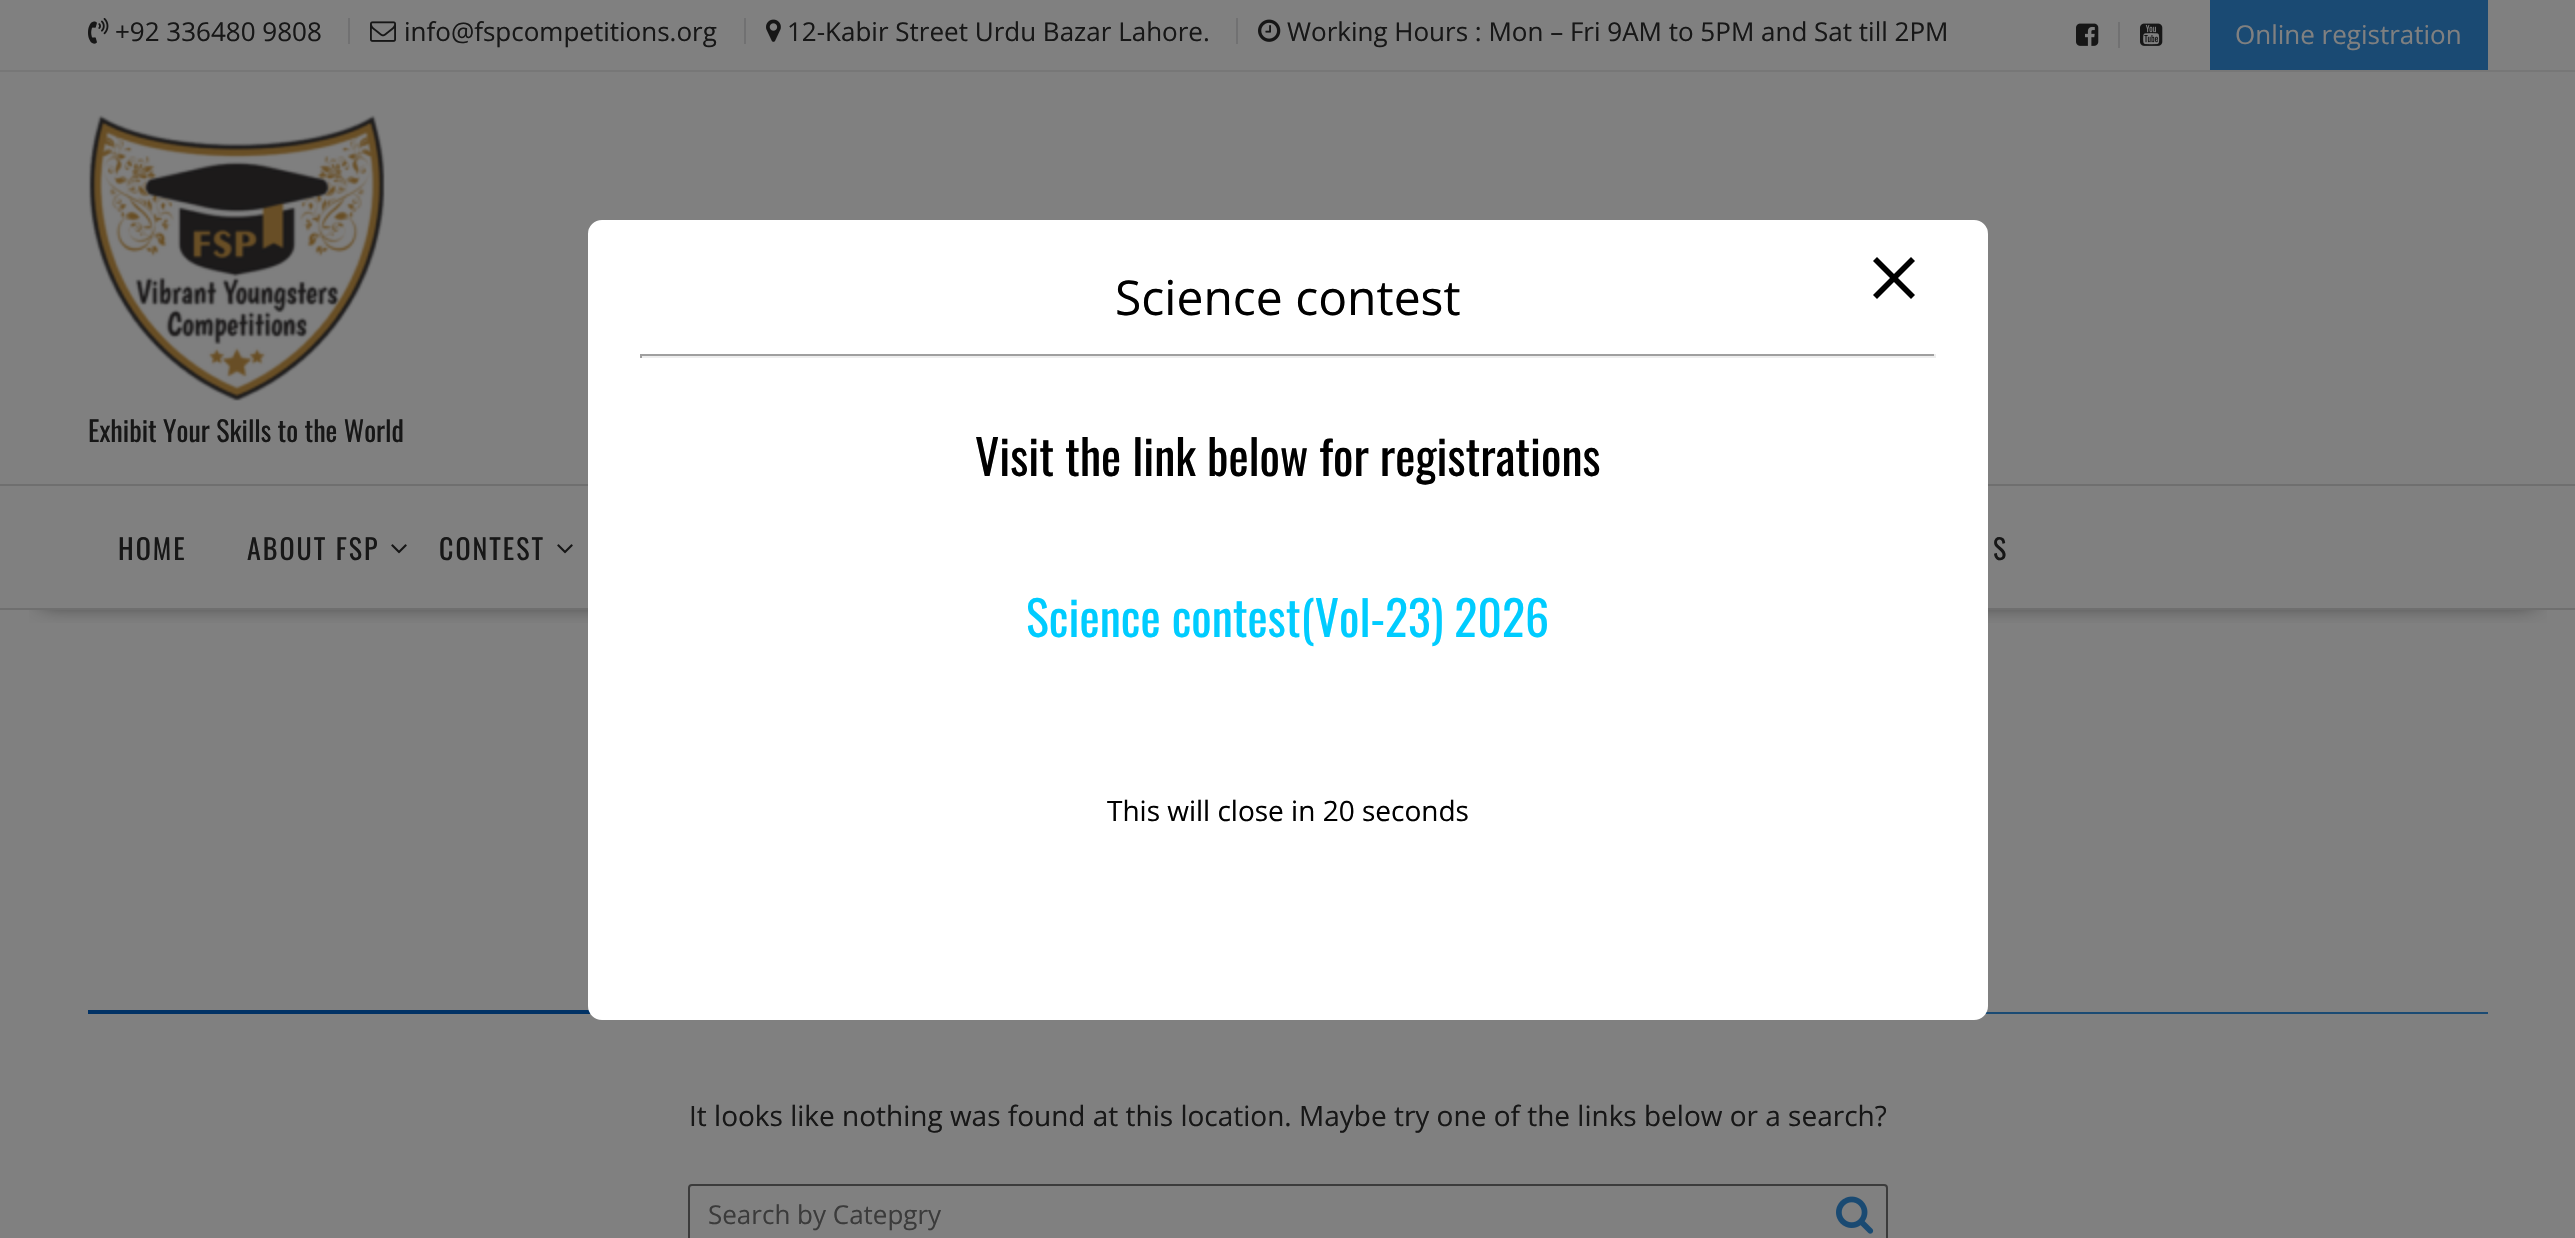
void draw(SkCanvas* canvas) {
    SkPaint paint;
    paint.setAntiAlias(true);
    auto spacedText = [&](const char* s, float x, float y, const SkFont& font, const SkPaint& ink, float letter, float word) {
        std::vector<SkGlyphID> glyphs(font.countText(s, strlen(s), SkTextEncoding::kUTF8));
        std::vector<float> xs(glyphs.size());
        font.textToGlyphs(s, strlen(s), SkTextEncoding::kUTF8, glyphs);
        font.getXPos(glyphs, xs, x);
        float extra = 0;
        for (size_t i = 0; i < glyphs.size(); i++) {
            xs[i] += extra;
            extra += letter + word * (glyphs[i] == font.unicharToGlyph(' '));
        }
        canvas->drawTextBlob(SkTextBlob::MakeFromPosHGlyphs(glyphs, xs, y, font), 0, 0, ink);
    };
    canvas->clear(0xFF808080);
    paint.setColor(0xFF777777);
    canvas->drawRect(SkRect::MakeXYWH(0, 70, 2575, 2), paint);
    canvas->drawImageRect(SkImages::DeferredFromEncodedData(SkData::MakeFromFileName("img1.png")), SkRect::MakeXYWH(88, 18, 21, 26), SkSamplingOptions());
    SkFont font1(fontMgr->matchFamilyStyle("Open Sans", SkFontStyle::Normal()), 26);
    font1.setSubpixel(true);
    paint.setColor(0xFF171717);
    canvas->drawString("+92 336480 9808", 115, 41, font1, paint);
    paint.setColor(0xFF717172);
    canvas->drawRect(SkRect::MakeXYWH(348, 18, 2, 26), paint);
    canvas->drawImageRect(SkImages::DeferredFromEncodedData(SkData::MakeFromFileName("img2.png")), SkRect::MakeXYWH(370, 21, 26, 21), SkSamplingOptions());
    paint.setColor(0xFF171717);
    canvas->drawString("info@fspcompetitions.org", 404, 41, font1, paint);
    paint.setColor(0xFF717172);
    canvas->drawRect(SkRect::MakeXYWH(744, 18, 2, 26), paint);
    canvas->drawImageRect(SkImages::DeferredFromEncodedData(SkData::MakeFromFileName("img3.png")), SkRect::MakeXYWH(766, 19, 15, 23), SkSamplingOptions());
    paint.setColor(0xFF171717);
    canvas->drawString("12-Kabir Street Urdu Bazar Lahore.", 787, 41, font1, paint);
    paint.setColor(0xFF717172);
    canvas->drawRect(SkRect::MakeXYWH(1236, 18, 2, 26), paint);
    canvas->drawImageRect(SkImages::DeferredFromEncodedData(SkData::MakeFromFileName("img4.png")), SkRect::MakeXYWH(1258, 19, 23, 23), SkSamplingOptions());
    paint.setColor(0xFF171717);
    canvas->drawString("Working Hours : Mon – Fri 9AM to 5PM and Sat till 2PM", 1287, 41, font1, paint);
    canvas->drawImageRect(SkImages::DeferredFromEncodedData(SkData::MakeFromFileName("img5.png")), SkRect::MakeXYWH(2076, 23, 23, 23), SkSamplingOptions());
    paint.setColor(0xFF717172);
    canvas->drawRect(SkRect::MakeXYWH(2118, 22, 2, 26), paint);
    canvas->drawImageRect(SkImages::DeferredFromEncodedData(SkData::MakeFromFileName("img6.png")), SkRect::MakeXYWH(2140, 23, 23, 23), SkSamplingOptions());
    paint.setColor(0xFF1A4A73);
    canvas->drawRect(SkRect::MakeXYWH(2210, 0, 278, 70), paint);
    paint.setColor(0xFF808080);
    canvas->drawString("Online registration", 2235, 44, font1, paint);
    canvas->drawImageRect(SkImages::DeferredFromEncodedData(SkData::MakeFromFileName("img7.png")), SkRect::MakeXYWH(88, 115, 297, 286), SkSamplingOptions());
    SkFont font2(fontMgr->matchFamilyStyle("Oswald", SkFontStyle::Normal()), 28);
    font2.setSubpixel(true);
    paint.setColor(0xFF171717);
    canvas->drawString("Exhibit Your Skills to the World", 88, 442, font2, paint);
    canvas->save();
    canvas->clipRect(SkRect::MakeXYWH(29, 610, 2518, 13));
    paint.setColor(0xBF000000);
    paint.setMaskFilter(SkMaskFilter::MakeBlur(kNormal_SkBlurStyle, 11));
    canvas->drawRect(SkRect::MakeXYWH(42, 560, 2492, 42), paint);
    paint.setMaskFilter(nullptr);
    canvas->restore();
    paint.setColor(0xFF6F6F6F);
    canvas->drawRect(SkRect::MakeXYWH(0, 484, 2575, 2), paint);
    canvas->drawRect(SkRect::MakeXYWH(0, 608, 2575, 2), paint);
    paint.setColor(0xFF171717);
    spacedText("HOME", 118, 560, font2, paint, 2, 0);
    spacedText("ABOUT FSP", 247, 560, font2, paint, 2, 0);
    canvas->drawImageRect(SkImages::DeferredFromEncodedData(SkData::MakeFromFileName("img8.png")), SkRect::MakeXYWH(391, 544, 16, 10), SkSamplingOptions());
    spacedText("CONTEST", 439, 560, font2, paint, 2, 0);
    canvas->drawImageRect(SkImages::DeferredFromEncodedData(SkData::MakeFromFileName("img8.png")), SkRect::MakeXYWH(557, 544, 16, 10), SkSamplingOptions());
    spacedText("S", 1993, 560, font2, paint, 2, 0);
    paint.setColor(0xFF1A4A73);
    canvas->drawRect(SkRect::MakeXYWH(1985, 1012, 503, 2), paint);
    paint.setColor(0xFF013265);
    canvas->drawRect(SkRect::MakeXYWH(88, 1010, 503, 4), paint);
    SkFont font3(fontMgr->matchFamilyStyle("Open Sans", SkFontStyle::Normal()), 28);
    font3.setSubpixel(true);
    paint.setColor(0xFF171717);
    canvas->drawString("It looks like nothing was found at this location. Maybe try one of the links below or a search?", 689, 1126, font3, paint);
    paint.setStyle(SkPaint::kStroke_Style);
    paint.setStrokeWidth(2);
    paint.setColor(0xFF3B3B3B);
    canvas->drawRoundRect(SkRect::MakeXYWH(689, 1185, 1198, 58), 3, 3, paint);
    paint.setStyle(SkPaint::kFill_Style);
    canvas->drawString("Search by Catepgry", 708, 1224, font1, paint);
    canvas->drawImageRect(SkImages::DeferredFromEncodedData(SkData::MakeFromFileName("img9.png")), SkRect::MakeXYWH(1836, 1196, 38, 38), SkSamplingOptions());
    paint.setColor(0xFFFFFFFF);
    canvas->drawRoundRect(SkRect::MakeXYWH(589, 221, 1398, 798), 13, 13, paint);
    paint.setStyle(SkPaint::kStroke_Style);
    canvas->drawRoundRect(SkRect::MakeXYWH(589, 221, 1398, 798), 13, 13, paint);
    SkFont font4(fontMgr->matchFamilyStyle("Open Sans", SkFontStyle::Normal()), 48);
    font4.setSubpixel(true);
    paint.setStyle(SkPaint::kFill_Style);
    paint.setColor(0xFF000000);
    canvas->drawString("Science contest", 1115, 315, font4, paint);
    canvas->drawPath(SkPathBuilder().moveTo(1915, 261).lineTo(1911, 257).lineTo(1894, 274).lineTo(1877, 257).lineTo(1873, 261).lineTo(1890, 278).lineTo(1873, 295).lineTo(1877, 299).lineTo(1894, 282).lineTo(1911, 299).lineTo(1915, 295).lineTo(1898, 278).close().detach(), paint);
    paint.setColor(0xFF9F9F9F);
    canvas->drawRect(SkRect::MakeXYWH(640, 354, 1296, 2), paint);
    paint.setColor(0xFFEEEEEE);
    canvas->drawRect(SkRect::MakeXYWH(1934, 354, 2, 4), paint);
    canvas->drawRect(SkRect::MakeXYWH(640, 356, 1296, 2), paint);
    paint.setColor(0xFF9F9F9F);
    canvas->drawRect(SkRect::MakeXYWH(640, 354, 2, 4), paint);
    SkFont font5(fontMgr->matchFamilyStyle("Oswald", SkFontStyle::Normal()), 48);
    font5.setSubpixel(true);
    paint.setColor(0xFF000000);
    canvas->drawString("Visit the link below for registrations", 975, 476, font5, paint);
    paint.setColor(0xFF00CCFF);
    canvas->drawString("Science contest(Vol-23) 2026", 1026, 637, font5, paint);
    paint.setColor(0xFF000000);
    canvas->drawString("This will close in 20 seconds", 1107, 821, font3, paint);
}
